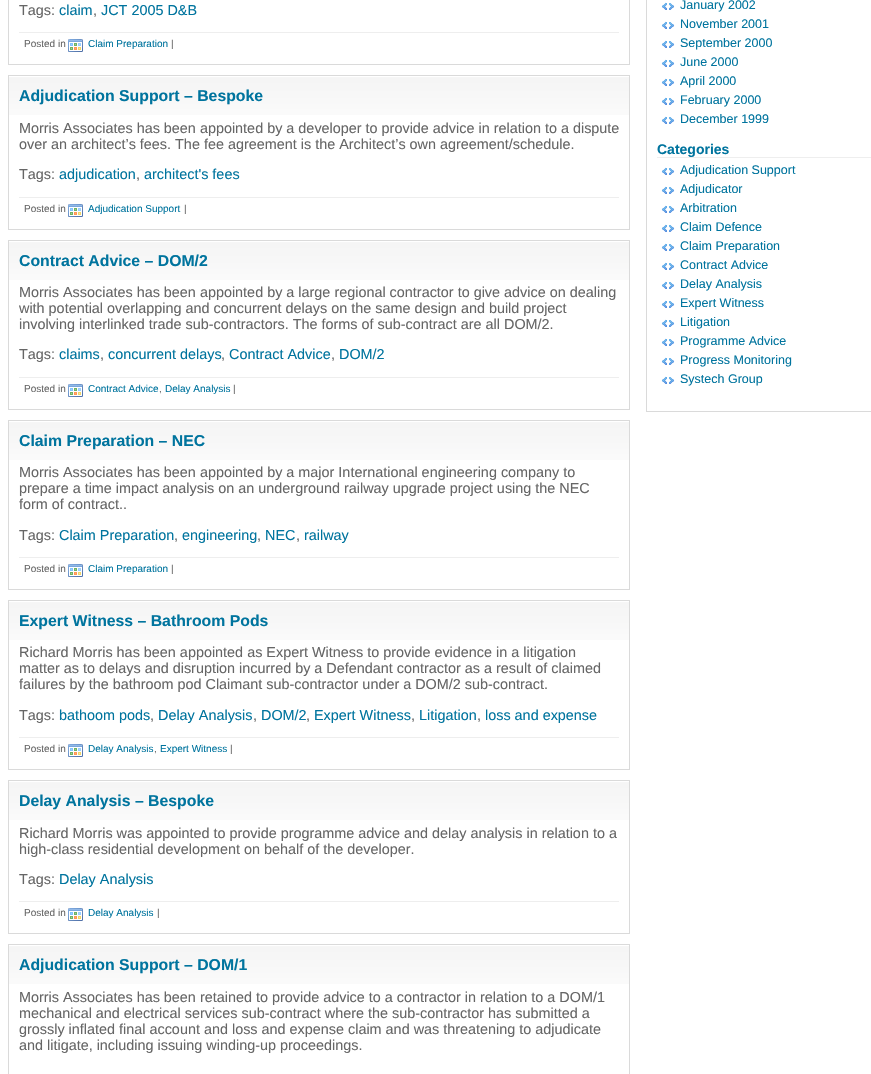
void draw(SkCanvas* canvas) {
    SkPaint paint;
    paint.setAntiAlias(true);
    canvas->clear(0xFFFFFFFF);
    paint.setStyle(SkPaint::kStroke_Style);
    paint.setStrokeWidth(1);
    paint.setColor(0xFFDADADA);
    canvas->drawRect(SkRect::MakeXYWH(8.5f, -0.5f, 621, 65), paint);
    SkFont font1(fontMgr->matchFamilyStyle("Liberation Sans", SkFontStyle::Normal()), 14.4f);
    font1.setSubpixel(true);
    paint.setStyle(SkPaint::kFill_Style);
    paint.setColor(0xFF666666);
    canvas->drawString("Tags:", 19, 15, font1, paint);
    paint.setColor(0xFF00749E);
    canvas->drawString("claim", 59, 15, font1, paint);
    paint.setColor(0xFF666666);
    canvas->drawString(",", 93, 15, font1, paint);
    paint.setColor(0xFF00749E);
    canvas->drawString("JCT 2005 D&B", 101, 15, font1, paint);
    paint.setColor(0xFFEEEEEE);
    canvas->drawRect(SkRect::MakeXYWH(19, 32, 600, 1), paint);
    SkFont font2(fontMgr->matchFamilyStyle("Liberation Sans", SkFontStyle::Normal()), 10);
    font2.setSubpixel(true);
    paint.setColor(0xFF666666);
    canvas->drawString("Posted in", 24, 47, font2, paint);
    canvas->drawImageRect(SkImages::DeferredFromEncodedData(SkData::MakeFromFileName("img1.png")), SkRect::MakeXYWH(68, 39, 15, 13), SkSamplingOptions());
    paint.setColor(0xFF00749E);
    canvas->drawString("Claim Preparation", 88, 47, font2, paint);
    paint.setColor(0xFF666666);
    canvas->drawString("|", 171, 47, font2, paint);
    canvas->drawImageRect(SkImages::DeferredFromEncodedData(SkData::MakeFromFileName("img2.png")), SkRect::MakeXYWH(9, 77, 620, 38), SkSamplingOptions());
    paint.setStyle(SkPaint::kStroke_Style);
    paint.setColor(0xFFDADADA);
    canvas->drawRect(SkRect::MakeXYWH(8.5f, 75.5f, 621, 154), paint);
    SkFont font3(fontMgr->matchFamilyStyle("Liberation Sans", SkFontStyle::Bold()), 15.8f);
    font3.setSubpixel(true);
    paint.setStyle(SkPaint::kFill_Style);
    paint.setColor(0xFF00749E);
    canvas->drawString("Adjudication Support – Bespoke", 19, 101, font3, paint);
    paint.setColor(0xFF666666);
    canvas->drawString("Morris Associates has been appointed by a developer to provide advice in relation to a dispute", 19, 133, font1, paint);
    canvas->drawString("over an architect’s fees. The fee agreement is the Architect’s own agreement/schedule.", 19, 149, font1, paint);
    canvas->drawString("Tags:", 19, 179, font1, paint);
    paint.setColor(0xFF00749E);
    canvas->drawString("adjudication", 59, 179, font1, paint);
    paint.setColor(0xFF666666);
    canvas->drawString(",", 136, 179, font1, paint);
    paint.setColor(0xFF00749E);
    canvas->drawString("architect's fees", 144, 179, font1, paint);
    paint.setColor(0xFFEEEEEE);
    canvas->drawRect(SkRect::MakeXYWH(19, 197, 600, 1), paint);
    paint.setColor(0xFF666666);
    canvas->drawString("Posted in", 24, 212, font2, paint);
    canvas->drawImageRect(SkImages::DeferredFromEncodedData(SkData::MakeFromFileName("img1.png")), SkRect::MakeXYWH(68, 204, 15, 13), SkSamplingOptions());
    paint.setColor(0xFF00749E);
    canvas->drawString("Adjudication Support", 88, 212, font2, paint);
    paint.setColor(0xFF666666);
    canvas->drawString("|", 184, 212, font2, paint);
    canvas->drawImageRect(SkImages::DeferredFromEncodedData(SkData::MakeFromFileName("img2.png")), SkRect::MakeXYWH(9, 242, 620, 38), SkSamplingOptions());
    paint.setStyle(SkPaint::kStroke_Style);
    paint.setColor(0xFFDADADA);
    canvas->drawRect(SkRect::MakeXYWH(8.5f, 240.5f, 621, 169), paint);
    paint.setStyle(SkPaint::kFill_Style);
    paint.setColor(0xFF00749E);
    canvas->drawString("Contract Advice – DOM/2", 19, 266, font3, paint);
    paint.setColor(0xFF666666);
    canvas->drawString("Morris Associates has been appointed by a large regional contractor to give advice on dealing", 19, 297, font1, paint);
    canvas->drawString("with potential overlapping and concurrent delays on the same design and build project", 19, 313, font1, paint);
    canvas->drawString("involving interlinked trade sub-contractors. The forms of sub-contract are all DOM/2.", 19, 329, font1, paint);
    canvas->drawString("Tags:", 19, 359, font1, paint);
    paint.setColor(0xFF00749E);
    canvas->drawString("claims", 59, 359, font1, paint);
    paint.setColor(0xFF666666);
    canvas->drawString(",", 100, 359, font1, paint);
    paint.setColor(0xFF00749E);
    canvas->drawString("concurrent delays", 108, 359, font1, paint);
    paint.setColor(0xFF666666);
    canvas->drawString(",", 221, 359, font1, paint);
    paint.setColor(0xFF00749E);
    canvas->drawString("Contract Advice", 229, 359, font1, paint);
    paint.setColor(0xFF666666);
    canvas->drawString(",", 331, 359, font1, paint);
    paint.setColor(0xFF00749E);
    canvas->drawString("DOM/2", 339, 359, font1, paint);
    paint.setColor(0xFFEEEEEE);
    canvas->drawRect(SkRect::MakeXYWH(19, 377, 600, 1), paint);
    paint.setColor(0xFF666666);
    canvas->drawString("Posted in", 24, 392, font2, paint);
    canvas->drawImageRect(SkImages::DeferredFromEncodedData(SkData::MakeFromFileName("img1.png")), SkRect::MakeXYWH(68, 384, 15, 13), SkSamplingOptions());
    paint.setColor(0xFF00749E);
    canvas->drawString("Contract Advice", 88, 392, font2, paint);
    paint.setColor(0xFF666666);
    canvas->drawString(",", 159, 392, font2, paint);
    paint.setColor(0xFF00749E);
    canvas->drawString("Delay Analysis", 165, 392, font2, paint);
    paint.setColor(0xFF666666);
    canvas->drawString("|", 233, 392, font2, paint);
    canvas->drawImageRect(SkImages::DeferredFromEncodedData(SkData::MakeFromFileName("img2.png")), SkRect::MakeXYWH(9, 422, 620, 38), SkSamplingOptions());
    paint.setStyle(SkPaint::kStroke_Style);
    paint.setColor(0xFFDADADA);
    canvas->drawRect(SkRect::MakeXYWH(8.5f, 420.5f, 621, 169), paint);
    paint.setStyle(SkPaint::kFill_Style);
    paint.setColor(0xFF00749E);
    canvas->drawString("Claim Preparation – NEC", 19, 446, font3, paint);
    paint.setColor(0xFF666666);
    canvas->drawString("Morris Associates has been appointed by a major International engineering company to", 19, 477, font1, paint);
    canvas->drawString("prepare a time impact analysis on an underground railway upgrade project using the NEC", 19, 493, font1, paint);
    canvas->drawString("form of contract..", 19, 509, font1, paint);
    canvas->drawString("Tags:", 19, 540, font1, paint);
    paint.setColor(0xFF00749E);
    canvas->drawString("Claim Preparation", 59, 540, font1, paint);
    paint.setColor(0xFF666666);
    canvas->drawString(",", 174, 540, font1, paint);
    paint.setColor(0xFF00749E);
    canvas->drawString("engineering", 182, 540, font1, paint);
    paint.setColor(0xFF666666);
    canvas->drawString(",", 257, 540, font1, paint);
    paint.setColor(0xFF00749E);
    canvas->drawString("NEC", 265, 540, font1, paint);
    paint.setColor(0xFF666666);
    canvas->drawString(",", 296, 540, font1, paint);
    paint.setColor(0xFF00749E);
    canvas->drawString("railway", 304, 540, font1, paint);
    paint.setColor(0xFFEEEEEE);
    canvas->drawRect(SkRect::MakeXYWH(19, 557, 600, 1), paint);
    paint.setColor(0xFF666666);
    canvas->drawString("Posted in", 24, 572, font2, paint);
    canvas->drawImageRect(SkImages::DeferredFromEncodedData(SkData::MakeFromFileName("img1.png")), SkRect::MakeXYWH(68, 564, 15, 13), SkSamplingOptions());
    paint.setColor(0xFF00749E);
    canvas->drawString("Claim Preparation", 88, 572, font2, paint);
    paint.setColor(0xFF666666);
    canvas->drawString("|", 171, 572, font2, paint);
    canvas->drawImageRect(SkImages::DeferredFromEncodedData(SkData::MakeFromFileName("img2.png")), SkRect::MakeXYWH(9, 602, 620, 38), SkSamplingOptions());
    paint.setStyle(SkPaint::kStroke_Style);
    paint.setColor(0xFFDADADA);
    canvas->drawRect(SkRect::MakeXYWH(8.5f, 600.5f, 621, 169), paint);
    paint.setStyle(SkPaint::kFill_Style);
    paint.setColor(0xFF00749E);
    canvas->drawString("Expert Witness – Bathroom Pods", 19, 626, font3, paint);
    paint.setColor(0xFF666666);
    canvas->drawString("Richard Morris has been appointed as Expert Witness to provide evidence in a litigation", 19, 657, font1, paint);
    canvas->drawString("matter as to delays and disruption incurred by a Defendant contractor as a result of claimed", 19, 673, font1, paint);
    canvas->drawString("failures by the bathroom pod Claimant sub-contractor under a DOM/2 sub-contract.", 19, 689, font1, paint);
    canvas->drawString("Tags:", 19, 720, font1, paint);
    paint.setColor(0xFF00749E);
    canvas->drawString("bathoom pods", 59, 720, font1, paint);
    paint.setColor(0xFF666666);
    canvas->drawString(",", 150, 720, font1, paint);
    paint.setColor(0xFF00749E);
    canvas->drawString("Delay Analysis", 158, 720, font1, paint);
    paint.setColor(0xFF666666);
    canvas->drawString(",", 253, 720, font1, paint);
    paint.setColor(0xFF00749E);
    canvas->drawString("DOM/2", 261, 720, font1, paint);
    paint.setColor(0xFF666666);
    canvas->drawString(",", 306, 720, font1, paint);
    paint.setColor(0xFF00749E);
    canvas->drawString("Expert Witness", 314, 720, font1, paint);
    paint.setColor(0xFF666666);
    canvas->drawString(",", 411, 720, font1, paint);
    paint.setColor(0xFF00749E);
    canvas->drawString("Litigation", 419, 720, font1, paint);
    paint.setColor(0xFF666666);
    canvas->drawString(",", 477, 720, font1, paint);
    paint.setColor(0xFF00749E);
    canvas->drawString("loss and expense", 485, 720, font1, paint);
    paint.setColor(0xFFEEEEEE);
    canvas->drawRect(SkRect::MakeXYWH(19, 737, 600, 1), paint);
    paint.setColor(0xFF666666);
    canvas->drawString("Posted in", 24, 752, font2, paint);
    canvas->drawImageRect(SkImages::DeferredFromEncodedData(SkData::MakeFromFileName("img1.png")), SkRect::MakeXYWH(68, 744, 15, 13), SkSamplingOptions());
    paint.setColor(0xFF00749E);
    canvas->drawString("Delay Analysis", 88, 752, font2, paint);
    paint.setColor(0xFF666666);
    canvas->drawString(",", 154, 752, font2, paint);
    paint.setColor(0xFF00749E);
    canvas->drawString("Expert Witness", 160, 752, font2, paint);
    paint.setColor(0xFF666666);
    canvas->drawString("|", 230, 752, font2, paint);
    canvas->drawImageRect(SkImages::DeferredFromEncodedData(SkData::MakeFromFileName("img2.png")), SkRect::MakeXYWH(9, 782, 620, 38), SkSamplingOptions());
    paint.setStyle(SkPaint::kStroke_Style);
    paint.setColor(0xFFDADADA);
    canvas->drawRect(SkRect::MakeXYWH(8.5f, 780.5f, 621, 153), paint);
    paint.setStyle(SkPaint::kFill_Style);
    paint.setColor(0xFF00749E);
    canvas->drawString("Delay Analysis – Bespoke", 19, 806, font3, paint);
    paint.setColor(0xFF666666);
    canvas->drawString("Richard Morris was appointed to provide programme advice and delay analysis in relation to a", 19, 838, font1, paint);
    canvas->drawString("high-class residential development on behalf of the developer.", 19, 854, font1, paint);
    canvas->drawString("Tags:", 19, 884, font1, paint);
    paint.setColor(0xFF00749E);
    canvas->drawString("Delay Analysis", 59, 884, font1, paint);
    paint.setColor(0xFFEEEEEE);
    canvas->drawRect(SkRect::MakeXYWH(19, 901, 600, 1), paint);
    paint.setColor(0xFF666666);
    canvas->drawString("Posted in", 24, 916, font2, paint);
    canvas->drawImageRect(SkImages::DeferredFromEncodedData(SkData::MakeFromFileName("img1.png")), SkRect::MakeXYWH(68, 908, 15, 13), SkSamplingOptions());
    paint.setColor(0xFF00749E);
    canvas->drawString("Delay Analysis", 88, 916, font2, paint);
    paint.setColor(0xFF666666);
    canvas->drawString("|", 157, 916, font2, paint);
    canvas->drawImageRect(SkImages::DeferredFromEncodedData(SkData::MakeFromFileName("img2.png")), SkRect::MakeXYWH(9, 946, 620, 38), SkSamplingOptions());
    paint.setStyle(SkPaint::kStroke_Style);
    paint.setColor(0xFFDADADA);
    canvas->drawRect(SkRect::MakeXYWH(8.5f, 944.5f, 621, 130), paint);
    paint.setStyle(SkPaint::kFill_Style);
    paint.setColor(0xFF00749E);
    canvas->drawString("Adjudication Support – DOM/1", 19, 970, font3, paint);
    paint.setColor(0xFF666666);
    canvas->drawString("Morris Associates has been retained to provide advice to a contractor in relation to a DOM/1", 19, 1002, font1, paint);
    canvas->drawString("mechanical and electrical services sub-contract where the sub-contractor has submitted a", 19, 1018, font1, paint);
    canvas->drawString("grossly inflated final account and loss and expense claim and was threatening to adjudicate", 19, 1034, font1, paint);
    canvas->drawString("and litigate, including issuing winding-up proceedings.", 19, 1050, font1, paint);
    paint.setStyle(SkPaint::kStroke_Style);
    paint.setColor(0xFFDADADA);
    canvas->drawRect(SkRect::MakeXYWH(646.5f, -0.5f, 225, 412), paint);
    canvas->drawImageRect(SkImages::DeferredFromEncodedData(SkData::MakeFromFileName("img3.png")), SkRect::MakeXYWH(661, 2, 14, 8), SkSamplingOptions());
    SkFont font4(fontMgr->matchFamilyStyle("Liberation Sans", SkFontStyle::Normal()), 12.5f);
    font4.setSubpixel(true);
    paint.setStyle(SkPaint::kFill_Style);
    paint.setColor(0xFF00749E);
    canvas->drawString("January 2002", 680, 9, font4, paint);
    canvas->drawImageRect(SkImages::DeferredFromEncodedData(SkData::MakeFromFileName("img3.png")), SkRect::MakeXYWH(661, 21, 14, 8), SkSamplingOptions());
    canvas->drawString("November 2001", 680, 28, font4, paint);
    canvas->drawImageRect(SkImages::DeferredFromEncodedData(SkData::MakeFromFileName("img3.png")), SkRect::MakeXYWH(661, 40, 14, 8), SkSamplingOptions());
    canvas->drawString("September 2000", 680, 47, font4, paint);
    canvas->drawImageRect(SkImages::DeferredFromEncodedData(SkData::MakeFromFileName("img3.png")), SkRect::MakeXYWH(661, 59, 14, 8), SkSamplingOptions());
    canvas->drawString("June 2000", 680, 66, font4, paint);
    canvas->drawImageRect(SkImages::DeferredFromEncodedData(SkData::MakeFromFileName("img3.png")), SkRect::MakeXYWH(661, 78, 14, 8), SkSamplingOptions());
    canvas->drawString("April 2000", 680, 85, font4, paint);
    canvas->drawImageRect(SkImages::DeferredFromEncodedData(SkData::MakeFromFileName("img3.png")), SkRect::MakeXYWH(661, 97, 14, 8), SkSamplingOptions());
    canvas->drawString("February 2000", 680, 104, font4, paint);
    canvas->drawImageRect(SkImages::DeferredFromEncodedData(SkData::MakeFromFileName("img3.png")), SkRect::MakeXYWH(661, 116, 14, 8), SkSamplingOptions());
    canvas->drawString("December 1999", 680, 123, font4, paint);
    paint.setColor(0xFFEEEEEE);
    canvas->drawRect(SkRect::MakeXYWH(657, 157, 214, 1), paint);
    SkFont font5(fontMgr->matchFamilyStyle("Liberation Sans", SkFontStyle::Bold()), 14);
    font5.setSubpixel(true);
    paint.setColor(0xFF00749E);
    canvas->drawString("Categories", 657, 154, font5, paint);
    canvas->drawImageRect(SkImages::DeferredFromEncodedData(SkData::MakeFromFileName("img3.png")), SkRect::MakeXYWH(661, 167, 14, 8), SkSamplingOptions());
    canvas->drawString("Adjudication Support", 680, 174, font4, paint);
    canvas->drawImageRect(SkImages::DeferredFromEncodedData(SkData::MakeFromFileName("img3.png")), SkRect::MakeXYWH(661, 186, 14, 8), SkSamplingOptions());
    canvas->drawString("Adjudicator", 680, 193, font4, paint);
    canvas->drawImageRect(SkImages::DeferredFromEncodedData(SkData::MakeFromFileName("img3.png")), SkRect::MakeXYWH(661, 205, 14, 8), SkSamplingOptions());
    canvas->drawString("Arbitration", 680, 212, font4, paint);
    canvas->drawImageRect(SkImages::DeferredFromEncodedData(SkData::MakeFromFileName("img3.png")), SkRect::MakeXYWH(661, 224, 14, 8), SkSamplingOptions());
    canvas->drawString("Claim Defence", 680, 231, font4, paint);
    canvas->drawImageRect(SkImages::DeferredFromEncodedData(SkData::MakeFromFileName("img3.png")), SkRect::MakeXYWH(661, 243, 14, 8), SkSamplingOptions());
    canvas->drawString("Claim Preparation", 680, 250, font4, paint);
    canvas->drawImageRect(SkImages::DeferredFromEncodedData(SkData::MakeFromFileName("img3.png")), SkRect::MakeXYWH(661, 262, 14, 8), SkSamplingOptions());
    canvas->drawString("Contract Advice", 680, 269, font4, paint);
    canvas->drawImageRect(SkImages::DeferredFromEncodedData(SkData::MakeFromFileName("img3.png")), SkRect::MakeXYWH(661, 281, 14, 8), SkSamplingOptions());
    canvas->drawString("Delay Analysis", 680, 288, font4, paint);
    canvas->drawImageRect(SkImages::DeferredFromEncodedData(SkData::MakeFromFileName("img3.png")), SkRect::MakeXYWH(661, 300, 14, 8), SkSamplingOptions());
    canvas->drawString("Expert Witness", 680, 307, font4, paint);
    canvas->drawImageRect(SkImages::DeferredFromEncodedData(SkData::MakeFromFileName("img3.png")), SkRect::MakeXYWH(661, 319, 14, 8), SkSamplingOptions());
    canvas->drawString("Litigation", 680, 326, font4, paint);
    canvas->drawImageRect(SkImages::DeferredFromEncodedData(SkData::MakeFromFileName("img3.png")), SkRect::MakeXYWH(661, 338, 14, 8), SkSamplingOptions());
    canvas->drawString("Programme Advice", 680, 345, font4, paint);
    canvas->drawImageRect(SkImages::DeferredFromEncodedData(SkData::MakeFromFileName("img3.png")), SkRect::MakeXYWH(661, 357, 14, 8), SkSamplingOptions());
    canvas->drawString("Progress Monitoring", 680, 364, font4, paint);
    canvas->drawImageRect(SkImages::DeferredFromEncodedData(SkData::MakeFromFileName("img3.png")), SkRect::MakeXYWH(661, 376, 14, 8), SkSamplingOptions());
    canvas->drawString("Systech Group", 680, 383, font4, paint);
}
